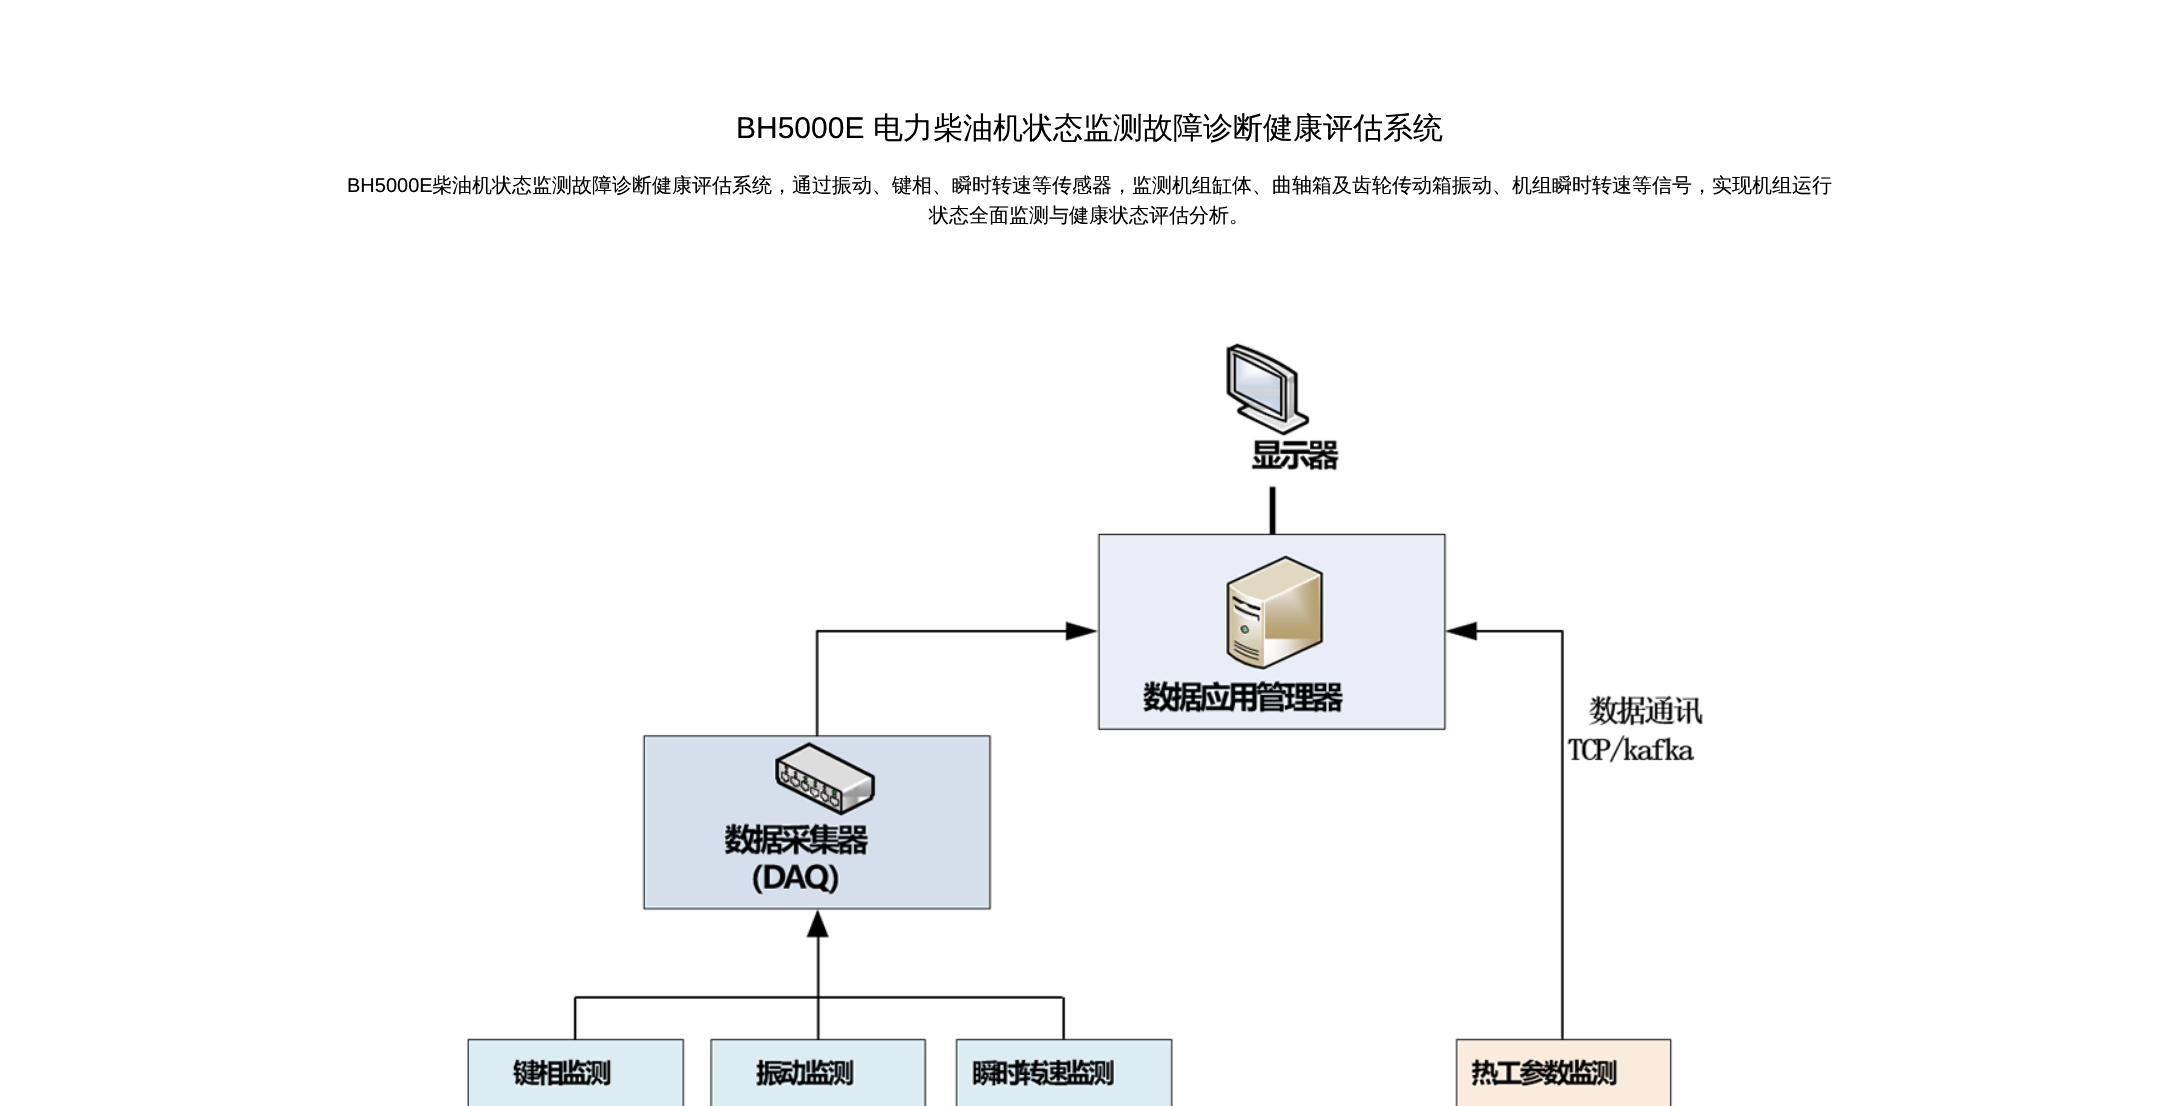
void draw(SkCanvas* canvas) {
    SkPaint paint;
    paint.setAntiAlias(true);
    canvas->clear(0xFFFFFFFF);
    SkFont font1(fontMgr->matchFamilyStyle("Liberation Sans", SkFontStyle::Normal()), 30);
    font1.setSubpixel(true);
    paint.setColor(0xFF000000);
    canvas->drawString("BH5000E", 736, 138, font1, paint);
    SkFont font2(fontMgr->matchFamilyStyle("WenQuanYi Zen Hei", SkFontStyle(500, SkFontStyle::kNormal_Width, SkFontStyle::kUpright_Slant)), 30);
    font2.setSubpixel(true);
    canvas->drawString("电力柴油机状态监测故障诊断健康评估系统", 873, 138, font2, paint);
    SkFont font3(fontMgr->matchFamilyStyle("Liberation Sans", SkFontStyle::Normal()), 20);
    font3.setSubpixel(true);
    canvas->drawString("BH5000E", 347, 192, font3, paint);
    SkFont font4(fontMgr->matchFamilyStyle("WenQuanYi Zen Hei", SkFontStyle(500, SkFontStyle::kNormal_Width, SkFontStyle::kUpright_Slant)), 20);
    font4.setSubpixel(true);
    canvas->drawString("柴油机状态监测故障诊断健康评估系统，通过振动、键相、瞬时转速等传感器，监测机组缸体、曲轴箱及齿轮传动箱振动、机组瞬时转速等信号，实现机组运行", 432, 192, font4, paint);
    canvas->drawString("状态全面监测与健康状态评估分析。", 929, 222, font4, paint);
    canvas->drawImageRect(SkImages::DeferredFromEncodedData(SkData::MakeFromFileName("img1.png")), SkRect::MakeXYWH(467, 343, 1237, 763), SkSamplingOptions());
}
